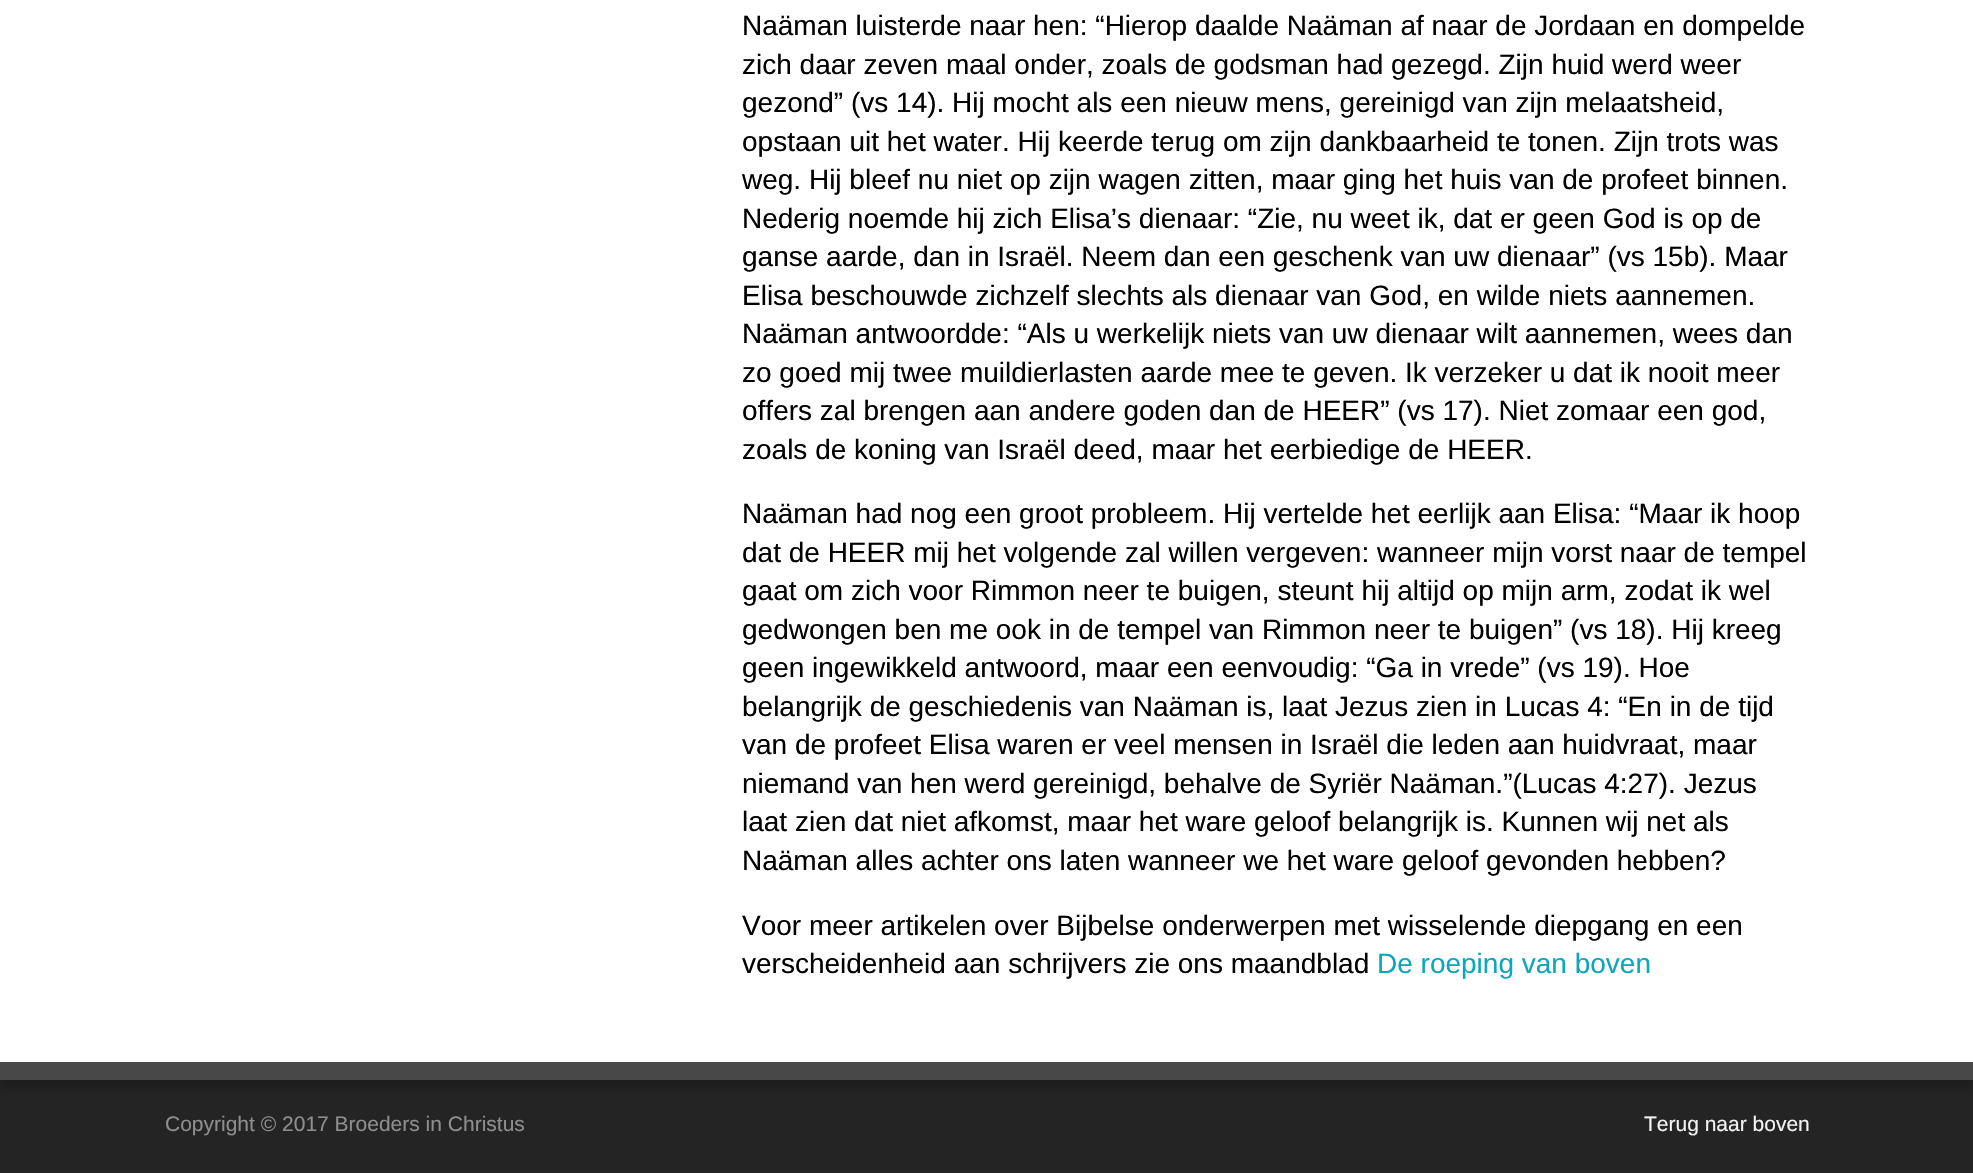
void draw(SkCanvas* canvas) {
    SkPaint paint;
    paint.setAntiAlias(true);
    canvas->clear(0xFFFFFFFF);
    SkFont font1(fontMgr->matchFamilyStyle("Liberation Sans", SkFontStyle::Normal()), 28);
    font1.setSubpixel(true);
    paint.setColor(0xFF000000);
    canvas->drawString("Naäman luisterde naar hen: “Hierop daalde Naäman af naar de Jordaan en dompelde", 742, 35, font1, paint);
    canvas->drawString("zich daar zeven maal onder, zoals de godsman had gezegd. Zijn huid werd weer", 742, 74, font1, paint);
    canvas->drawString("gezond” (vs 14). Hij mocht als een nieuw mens, gereinigd van zijn melaatsheid,", 742, 112, font1, paint);
    canvas->drawString("opstaan uit het water. Hij keerde terug om zijn dankbaarheid te tonen. Zijn trots was", 742, 151, font1, paint);
    canvas->drawString("weg. Hij bleef nu niet op zijn wagen zitten, maar ging het huis van de profeet binnen.", 742, 189, font1, paint);
    canvas->drawString("Nederig noemde hij zich Elisa’s dienaar: “Zie, nu weet ik, dat er geen God is op de", 742, 228, font1, paint);
    canvas->drawString("ganse aarde, dan in Israël. Neem dan een geschenk van uw dienaar” (vs 15b). Maar", 742, 266, font1, paint);
    canvas->drawString("Elisa beschouwde zichzelf slechts als dienaar van God, en wilde niets aannemen.", 742, 305, font1, paint);
    canvas->drawString("Naäman antwoordde: “Als u werkelijk niets van uw dienaar wilt aannemen, wees dan", 742, 343, font1, paint);
    canvas->drawString("zo goed mij twee muildierlasten aarde mee te geven. Ik verzeker u dat ik nooit meer", 742, 382, font1, paint);
    canvas->drawString("offers zal brengen aan andere goden dan de HEER” (vs 17). Niet zomaar een god,", 742, 420, font1, paint);
    canvas->drawString("zoals de koning van Israël deed, maar het eerbiedige de HEER.", 742, 459, font1, paint);
    canvas->drawString("Naäman had nog een groot probleem. Hij vertelde het eerlijk aan Elisa: “Maar ik hoop", 742, 523, font1, paint);
    canvas->drawString("dat de HEER mij het volgende zal willen vergeven: wanneer mijn vorst naar de tempel", 742, 562, font1, paint);
    canvas->drawString("gaat om zich voor Rimmon neer te buigen, steunt hij altijd op mijn arm, zodat ik wel", 742, 600, font1, paint);
    canvas->drawString("gedwongen ben me ook in de tempel van Rimmon neer te buigen” (vs 18). Hij kreeg", 742, 639, font1, paint);
    canvas->drawString("geen ingewikkeld antwoord, maar een eenvoudig: “Ga in vrede” (vs 19). Hoe", 742, 677, font1, paint);
    canvas->drawString("belangrijk de geschiedenis van Naäman is, laat Jezus zien in Lucas 4: “En in de tijd", 742, 716, font1, paint);
    canvas->drawString("van de profeet Elisa waren er veel mensen in Israël die leden aan huidvraat, maar", 742, 754, font1, paint);
    canvas->drawString("niemand van hen werd gereinigd, behalve de Syriër Naäman.”(Lucas 4:27). Jezus", 742, 793, font1, paint);
    canvas->drawString("laat zien dat niet afkomst, maar het ware geloof belangrijk is. Kunnen wij net als", 742, 831, font1, paint);
    canvas->drawString("Naäman alles achter ons laten wanneer we het ware geloof gevonden hebben?", 742, 870, font1, paint);
    canvas->drawString("Voor meer artikelen over Bijbelse onderwerpen met wisselende diepgang en een", 742, 935, font1, paint);
    canvas->drawString("verscheidenheid aan schrijvers zie ons maandblad", 742, 973, font1, paint);
    paint.setColor(0xFF0CA6BD);
    canvas->drawString("De roeping van boven", 1377, 973, font1, paint);
    paint.setColor(0xFF242424);
    canvas->drawRect(SkRect::MakeXYWH(0, 1080, 1973, 93), paint);
    paint.setColor(0x33000000);
    paint.setMaskFilter(SkMaskFilter::MakeBlur(kNormal_SkBlurStyle, 4.5f));
    canvas->drawRect(SkRect::MakeXYWH(0, 1071, 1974, 18), paint);
    paint.setMaskFilter(nullptr);
    paint.setColor(0xFF484848);
    canvas->drawRect(SkRect::MakeXYWH(0, 1062, 1973, 18), paint);
    SkFont font2(fontMgr->matchFamilyStyle("Liberation Sans", SkFontStyle::Normal()), 21);
    font2.setSubpixel(true);
    paint.setColor(0xFF8E8E8E);
    canvas->drawString("Copyright © 2017 Broeders in Christus", 165, 1131, font2, paint);
    paint.setColor(0xFFF2F2F2);
    canvas->drawString("Terug naar boven", 1644, 1131, font2, paint);
}
